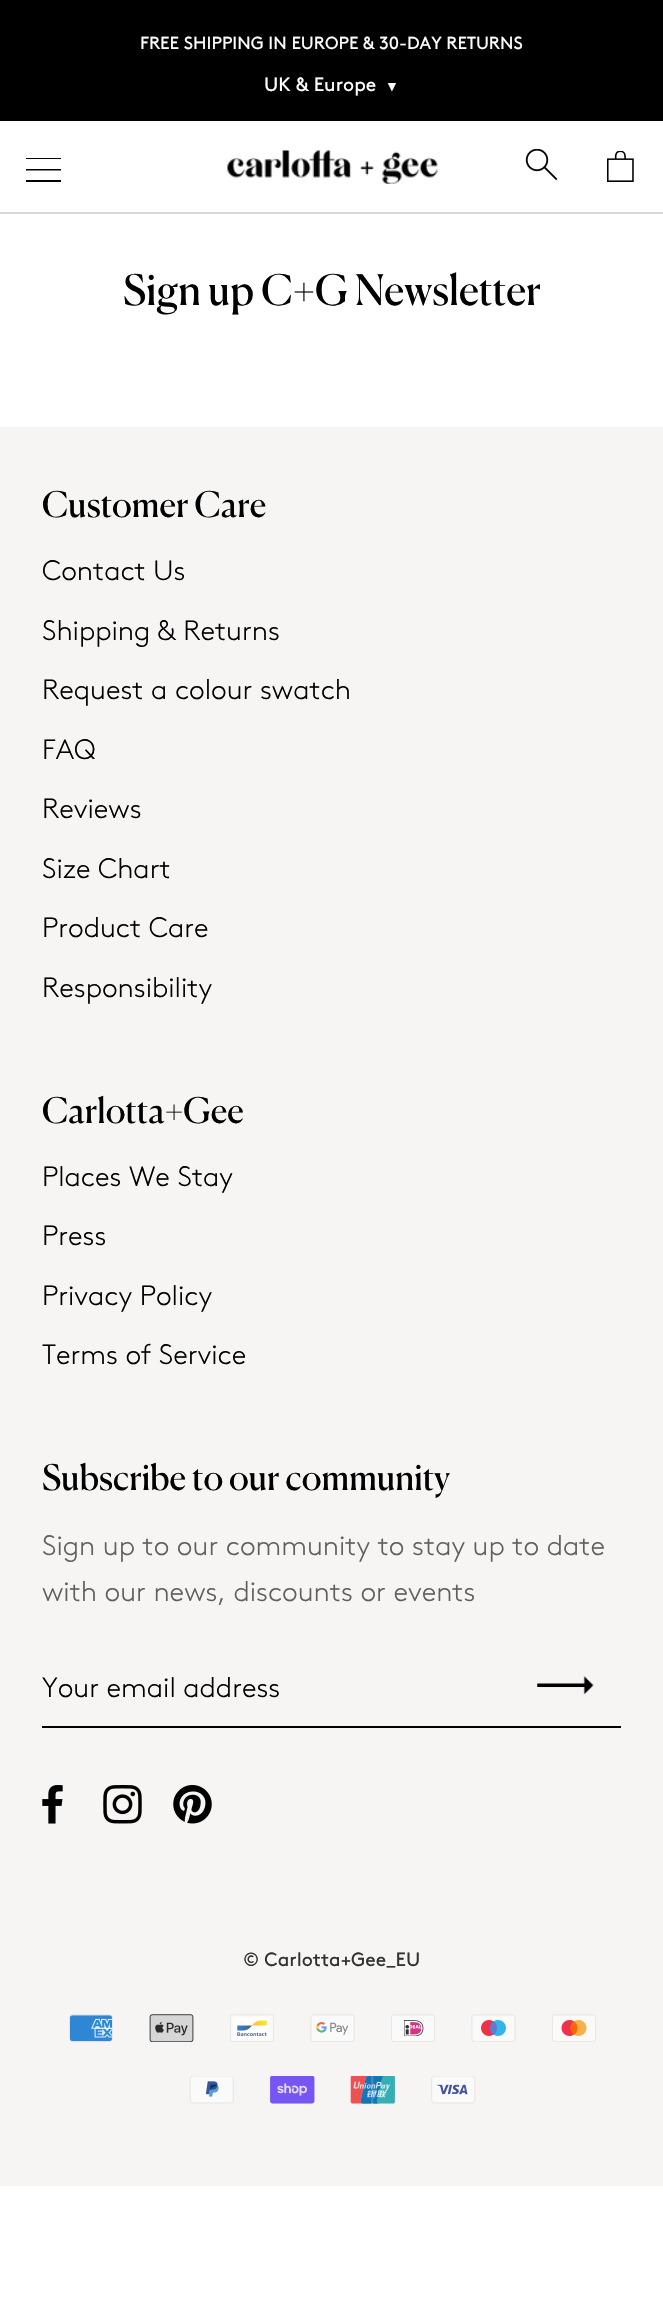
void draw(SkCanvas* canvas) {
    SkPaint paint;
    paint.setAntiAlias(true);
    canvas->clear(0xFFFFFFFF);
    paint.setColor(0xFF000000);
    canvas->drawRect(SkRect::MakeXYWH(0, 0, 663, 121), paint);
    SkFont font1(fontMgr->matchFamilyStyle("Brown", SkFontStyle::Normal()), 17.5f);
    font1.setSubpixel(true);
    paint.setColor(0xFFFFFDFD);
    canvas->drawString("FREE SHIPPING IN EUROPE & 30-DAY RETURNS", 140, 49, font1, paint);
    SkFont font2(fontMgr->matchFamilyStyle("Brown", SkFontStyle::Normal()), 19.25f);
    font2.setSubpixel(true);
    canvas->drawString("UK & Europe", 264, 91, font2, paint);
    SkFont font3(fontMgr->matchFamilyStyle("Liberation Serif", SkFontStyle::Bold()), 14);
    font3.setSubpixel(true);
    canvas->drawString("▼", 385, 91, font3, paint);
    paint.setColor(0xFFD9D9D9);
    canvas->drawRect(SkRect::MakeXYWH(0, 212, 663, 2), paint);
    canvas->save();
    canvas->clipRect(SkRect::MakeXYWH(26, 158, 35, 24));
    paint.setColor(0xFF000000);
    canvas->drawPath(SkPathBuilder().moveTo(26, 182).lineTo(26, 180).lineTo(61, 180).lineTo(61, 182).close().moveTo(26, 169).lineTo(61, 169).lineTo(61, 170.5f).lineTo(26, 170.5f).close().moveTo(26, 157.5f).lineTo(61, 157.5f).lineTo(61, 159).lineTo(26, 159).close().detach(), paint);
    canvas->restore();
    canvas->drawImageRect(SkImages::DeferredFromEncodedData(SkData::MakeFromFileName("img1.png")), SkRect::MakeXYWH(227, 150, 211, 34), SkSamplingOptions());
    canvas->drawImageRect(SkImages::DeferredFromEncodedData(SkData::MakeFromFileName("img2.png")), SkRect::MakeXYWH(525, 149, 33, 31), SkSamplingOptions());
    canvas->drawImageRect(SkImages::DeferredFromEncodedData(SkData::MakeFromFileName("img3.png")), SkRect::MakeXYWH(607, 151, 27, 31), SkSamplingOptions());
    SkFont font4(fontMgr->matchFamilyStyle("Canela", SkFontStyle::Normal()), 42);
    font4.setSubpixel(true);
    canvas->drawString("Sign up C+G Newsletter", 123, 305, font4, paint);
    paint.setColor(0xFFF7F5F4);
    canvas->drawRect(SkRect::MakeXYWH(0, 427, 663, 1759), paint);
    SkFont font5(fontMgr->matchFamilyStyle("Canela", SkFontStyle::Normal()), 35);
    font5.setSubpixel(true);
    paint.setColor(0xFF000000);
    canvas->drawString("Customer Care", 42, 517, font5, paint);
    SkFont font6(fontMgr->matchFamilyStyle("Brown", SkFontStyle(300, SkFontStyle::kNormal_Width, SkFontStyle::kUpright_Slant)), 28);
    font6.setSubpixel(true);
    canvas->drawString("Contact Us", 42, 580, font6, paint);
    canvas->drawString("Shipping & Returns", 42, 640, font6, paint);
    canvas->drawString("Request a colour swatch", 42, 699, font6, paint);
    canvas->drawString("FAQ", 42, 759, font6, paint);
    canvas->drawString("Reviews", 42, 818, font6, paint);
    canvas->drawString("Size Chart", 42, 878, font6, paint);
    canvas->drawString("Product Care", 42, 937, font6, paint);
    canvas->drawString("Responsibility", 42, 997, font6, paint);
    canvas->drawString("Carlotta+Gee", 42, 1123, font5, paint);
    canvas->drawString("Places We Stay", 42, 1186, font6, paint);
    canvas->drawString("Press", 42, 1245, font6, paint);
    canvas->drawString("Privacy Policy", 42, 1305, font6, paint);
    canvas->drawString("Terms of Service", 42, 1364, font6, paint);
    canvas->drawString("Subscribe to our community", 42, 1490, font5, paint);
    paint.setColor(0xFF5F5F5F);
    canvas->drawString("Sign up to our community to stay up to date", 42, 1555, font6, paint);
    canvas->drawString("with our news, discounts or events", 42, 1601, font6, paint);
    paint.setColor(0xFF000000);
    canvas->drawRect(SkRect::MakeXYWH(42, 1726, 579, 2), paint);
    canvas->drawString("Your email address", 42, 1697, font6, paint);
    canvas->drawImageRect(SkImages::DeferredFromEncodedData(SkData::MakeFromFileName("img4.png")), SkRect::MakeXYWH(537, 1676, 57, 18), SkSamplingOptions());
    canvas->drawImageRect(SkImages::DeferredFromEncodedData(SkData::MakeFromFileName("img5.png")), SkRect::MakeXYWH(42, 1785, 21, 39), SkSamplingOptions());
    canvas->drawImageRect(SkImages::DeferredFromEncodedData(SkData::MakeFromFileName("img6.png")), SkRect::MakeXYWH(103, 1785, 39, 39), SkSamplingOptions());
    canvas->drawImageRect(SkImages::DeferredFromEncodedData(SkData::MakeFromFileName("img7.png")), SkRect::MakeXYWH(173, 1785, 39, 39), SkSamplingOptions());
    paint.setColor(0xFF323232);
    canvas->drawString("© Carlotta+Gee_EU", 243, 1966, font2, paint);
    canvas->drawImageRect(SkImages::DeferredFromEncodedData(SkData::MakeFromFileName("img8.png")), SkRect::MakeXYWH(69, 2014, 44, 28), SkSamplingOptions());
    canvas->drawImageRect(SkImages::DeferredFromEncodedData(SkData::MakeFromFileName("img9.png")), SkRect::MakeXYWH(149, 2014, 45, 28), SkSamplingOptions());
    canvas->drawImageRect(SkImages::DeferredFromEncodedData(SkData::MakeFromFileName("img10.png")), SkRect::MakeXYWH(230, 2014, 44, 28), SkSamplingOptions());
    canvas->drawImageRect(SkImages::DeferredFromEncodedData(SkData::MakeFromFileName("img11.png")), SkRect::MakeXYWH(310, 2014, 45, 28), SkSamplingOptions());
    canvas->drawImageRect(SkImages::DeferredFromEncodedData(SkData::MakeFromFileName("img12.png")), SkRect::MakeXYWH(391, 2014, 44, 28), SkSamplingOptions());
    canvas->drawImageRect(SkImages::DeferredFromEncodedData(SkData::MakeFromFileName("img13.png")), SkRect::MakeXYWH(471, 2014, 45, 28), SkSamplingOptions());
    canvas->drawImageRect(SkImages::DeferredFromEncodedData(SkData::MakeFromFileName("img14.png")), SkRect::MakeXYWH(552, 2014, 44, 28), SkSamplingOptions());
    canvas->drawImageRect(SkImages::DeferredFromEncodedData(SkData::MakeFromFileName("img15.png")), SkRect::MakeXYWH(189, 2076, 45, 28), SkSamplingOptions());
    canvas->drawImageRect(SkImages::DeferredFromEncodedData(SkData::MakeFromFileName("img16.png")), SkRect::MakeXYWH(270, 2076, 45, 28), SkSamplingOptions());
    canvas->drawImageRect(SkImages::DeferredFromEncodedData(SkData::MakeFromFileName("img17.png")), SkRect::MakeXYWH(350, 2076, 45, 28), SkSamplingOptions());
    canvas->drawImageRect(SkImages::DeferredFromEncodedData(SkData::MakeFromFileName("img18.png")), SkRect::MakeXYWH(431, 2076, 45, 28), SkSamplingOptions());
}
